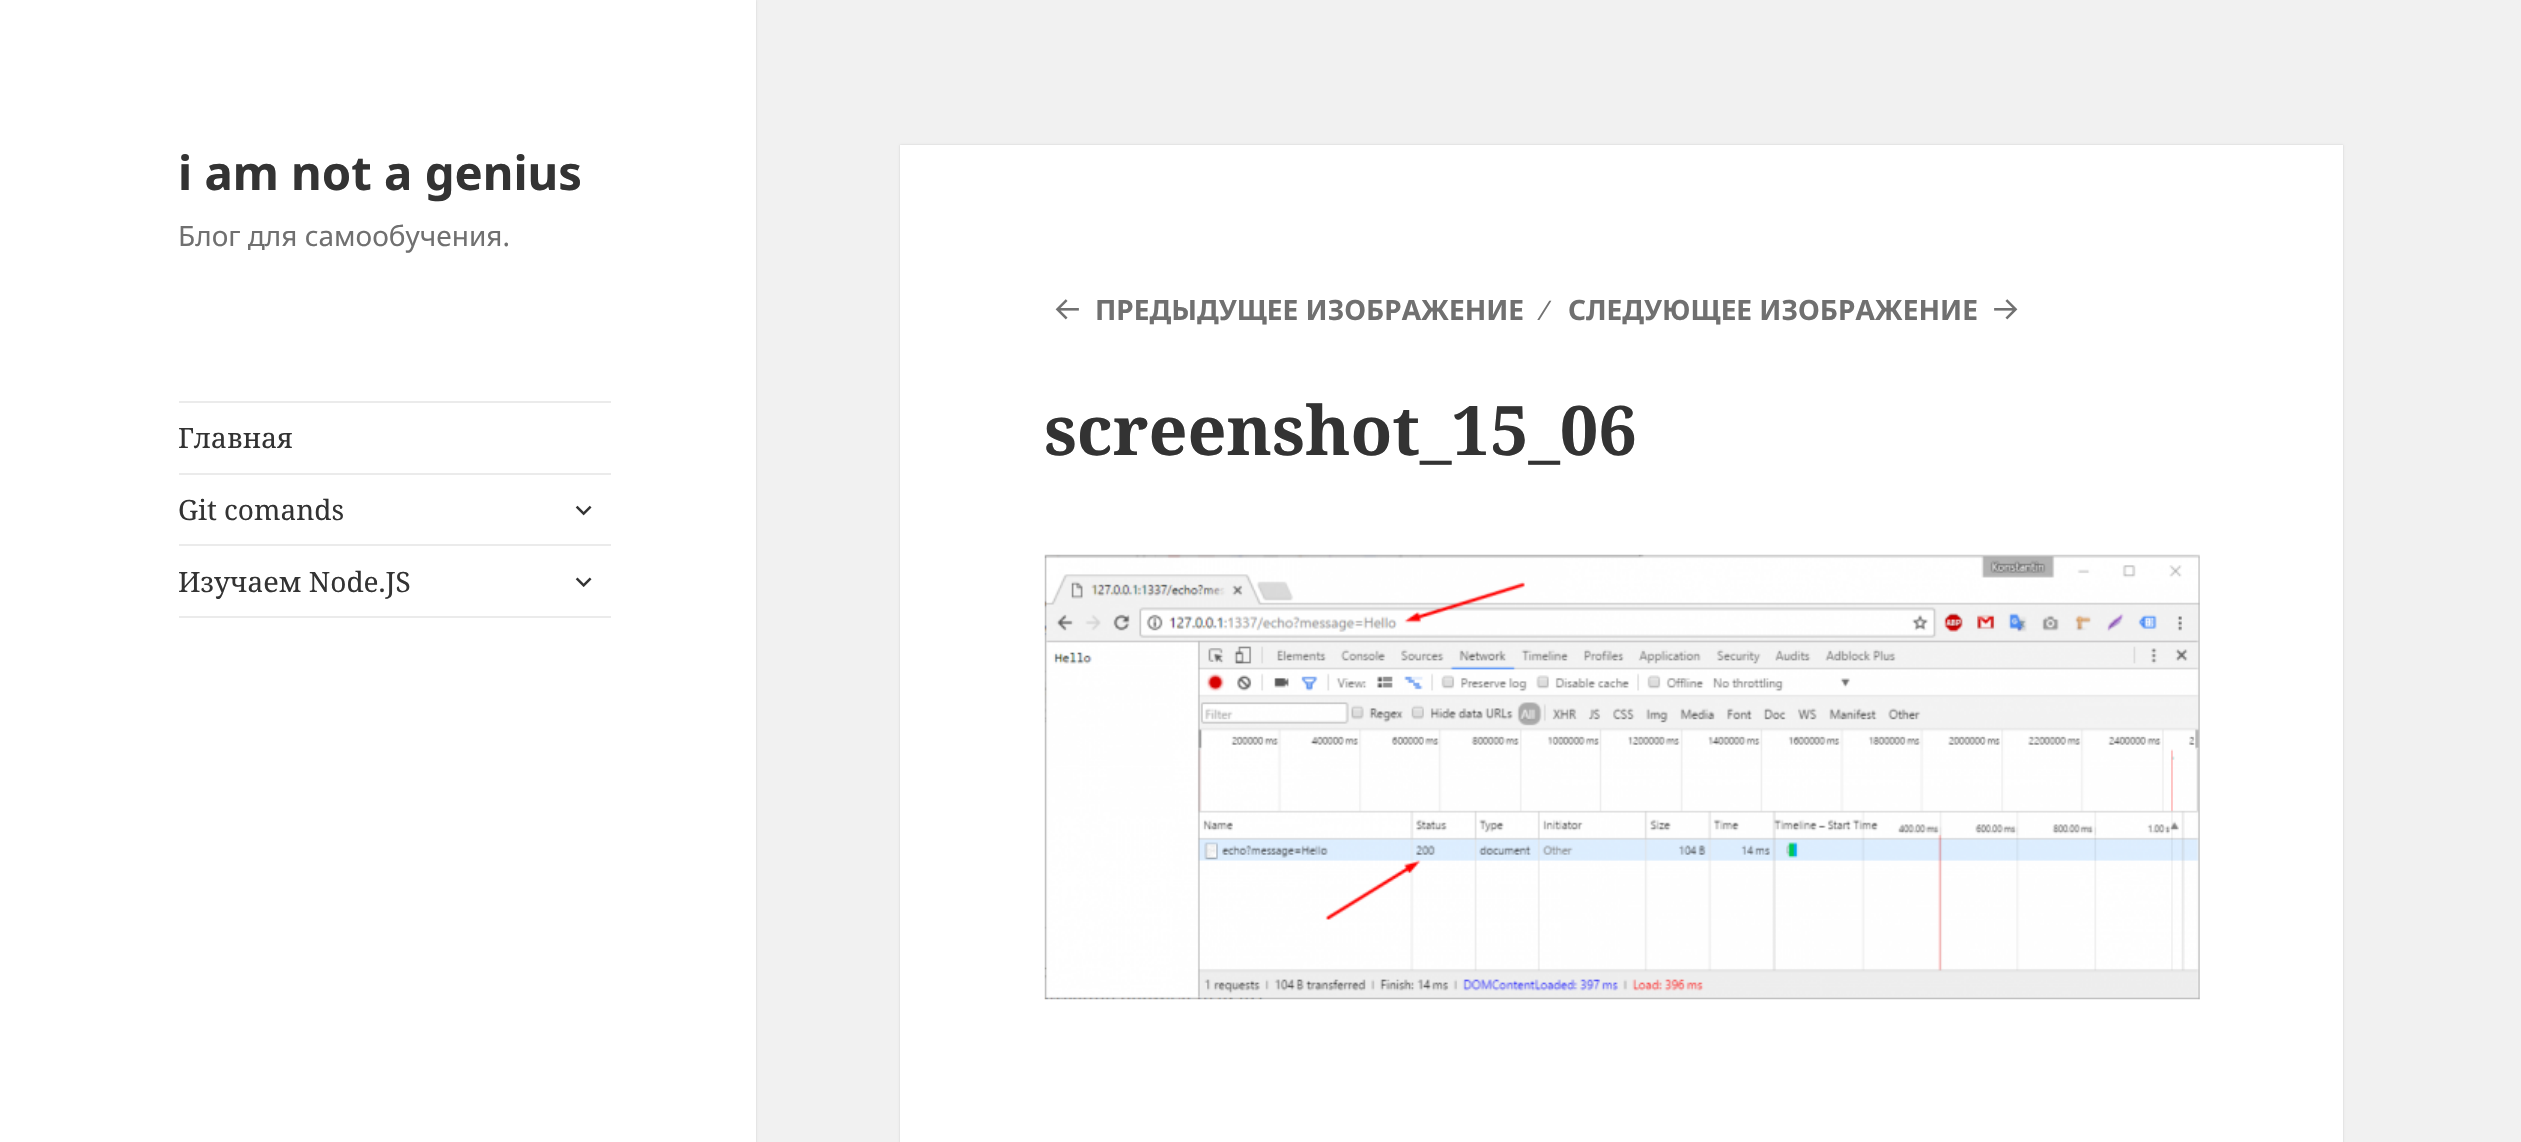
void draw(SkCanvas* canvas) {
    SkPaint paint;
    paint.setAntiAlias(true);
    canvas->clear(0xFFF1F1F1);
    paint.setColor(0x26000000);
    paint.setMaskFilter(SkMaskFilter::MakeBlur(kNormal_SkBlurStyle, 1));
    canvas->drawRect(SkRect::MakeXYWH(0, 0, 756, 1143), paint);
    paint.setMaskFilter(nullptr);
    paint.setColor(0xFFFFFFFF);
    canvas->drawRect(SkRect::MakeXYWH(0, 0, 756, 1142), paint);
    SkFont font1(fontMgr->matchFamilyStyle("Noto Sans", SkFontStyle::Bold()), 47.25f);
    font1.setSubpixel(true);
    paint.setColor(0xFF333333);
    canvas->drawString("i am not a genius", 178, 190, font1, paint);
    SkFont font2(fontMgr->matchFamilyStyle("Noto Sans", SkFontStyle::Normal()), 28);
    font2.setSubpixel(true);
    paint.setColor(0xFF707070);
    canvas->drawString("Блог для самообучения.", 178, 246, font2, paint);
    paint.setColor(0xFFEBEBEB);
    canvas->drawRect(SkRect::MakeXYWH(179, 401, 432, 2), paint);
    canvas->drawRect(SkRect::MakeXYWH(179, 616, 432, 2), paint);
    SkFont font3(fontMgr->matchFamilyStyle("Noto Serif", SkFontStyle::Normal()), 28);
    font3.setSubpixel(true);
    paint.setColor(0xFF333333);
    canvas->drawString("Главная", 178, 448, font3, paint);
    paint.setColor(0xFFEBEBEB);
    canvas->drawRect(SkRect::MakeXYWH(179, 473, 432, 2), paint);
    paint.setColor(0xFF333333);
    canvas->drawString("Git comands", 178, 520, font3, paint);
    canvas->drawImageRect(SkImages::DeferredFromEncodedData(SkData::MakeFromFileName("img1.png")), SkRect::MakeXYWH(575, 505, 17, 11), SkSamplingOptions());
    paint.setColor(0xFFEBEBEB);
    canvas->drawRect(SkRect::MakeXYWH(179, 544, 432, 2), paint);
    paint.setColor(0xFF333333);
    canvas->drawString("Изучаем Node.JS", 178, 592, font3, paint);
    canvas->drawImageRect(SkImages::DeferredFromEncodedData(SkData::MakeFromFileName("img2.png")), SkRect::MakeXYWH(575, 577, 17, 10), SkSamplingOptions());
    paint.setColor(0x26000000);
    paint.setMaskFilter(SkMaskFilter::MakeBlur(kNormal_SkBlurStyle, 1));
    canvas->drawRect(SkRect::MakeXYWH(900, 145, 1443, 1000), paint);
    paint.setMaskFilter(nullptr);
    paint.setColor(0xFFFFFFFF);
    canvas->drawRect(SkRect::MakeXYWH(900, 145, 1443, 997), paint);
    canvas->drawImageRect(SkImages::DeferredFromEncodedData(SkData::MakeFromFileName("img3.png")), SkRect::MakeXYWH(1055, 299, 24, 21), SkSamplingOptions());
    SkFont font4(fontMgr->matchFamilyStyle("Noto Sans", SkFontStyle::Bold()), 28);
    font4.setSubpixel(true);
    paint.setColor(0xFF707070);
    canvas->drawString("ПРЕДЫДУЩЕЕ ИЗОБРАЖЕНИЕ", 1095, 320, font4, paint);
    SkFont font5(fontMgr->matchFamilyStyle("Liberation Sans", SkFontStyle::Normal()), 28);
    font5.setSubpixel(true);
    canvas->drawString("∕", 1543, 320, font5, paint);
    canvas->drawString("СЛЕДУЮЩЕЕ ИЗОБРАЖЕНИЕ", 1568, 320, font4, paint);
    canvas->drawImageRect(SkImages::DeferredFromEncodedData(SkData::MakeFromFileName("img4.png")), SkRect::MakeXYWH(1994, 299, 24, 21), SkSamplingOptions());
    SkFont font6(fontMgr->matchFamilyStyle("Noto Serif", SkFontStyle::Bold()), 68.25f);
    font6.setSubpixel(true);
    paint.setColor(0xFF333333);
    canvas->drawString("screenshot_15_06", 1044, 455, font6, paint);
    canvas->drawImageRect(SkImages::DeferredFromEncodedData(SkData::MakeFromFileName("img5.png")), SkRect::MakeXYWH(1044, 554, 1156, 446), SkSamplingOptions());
}
